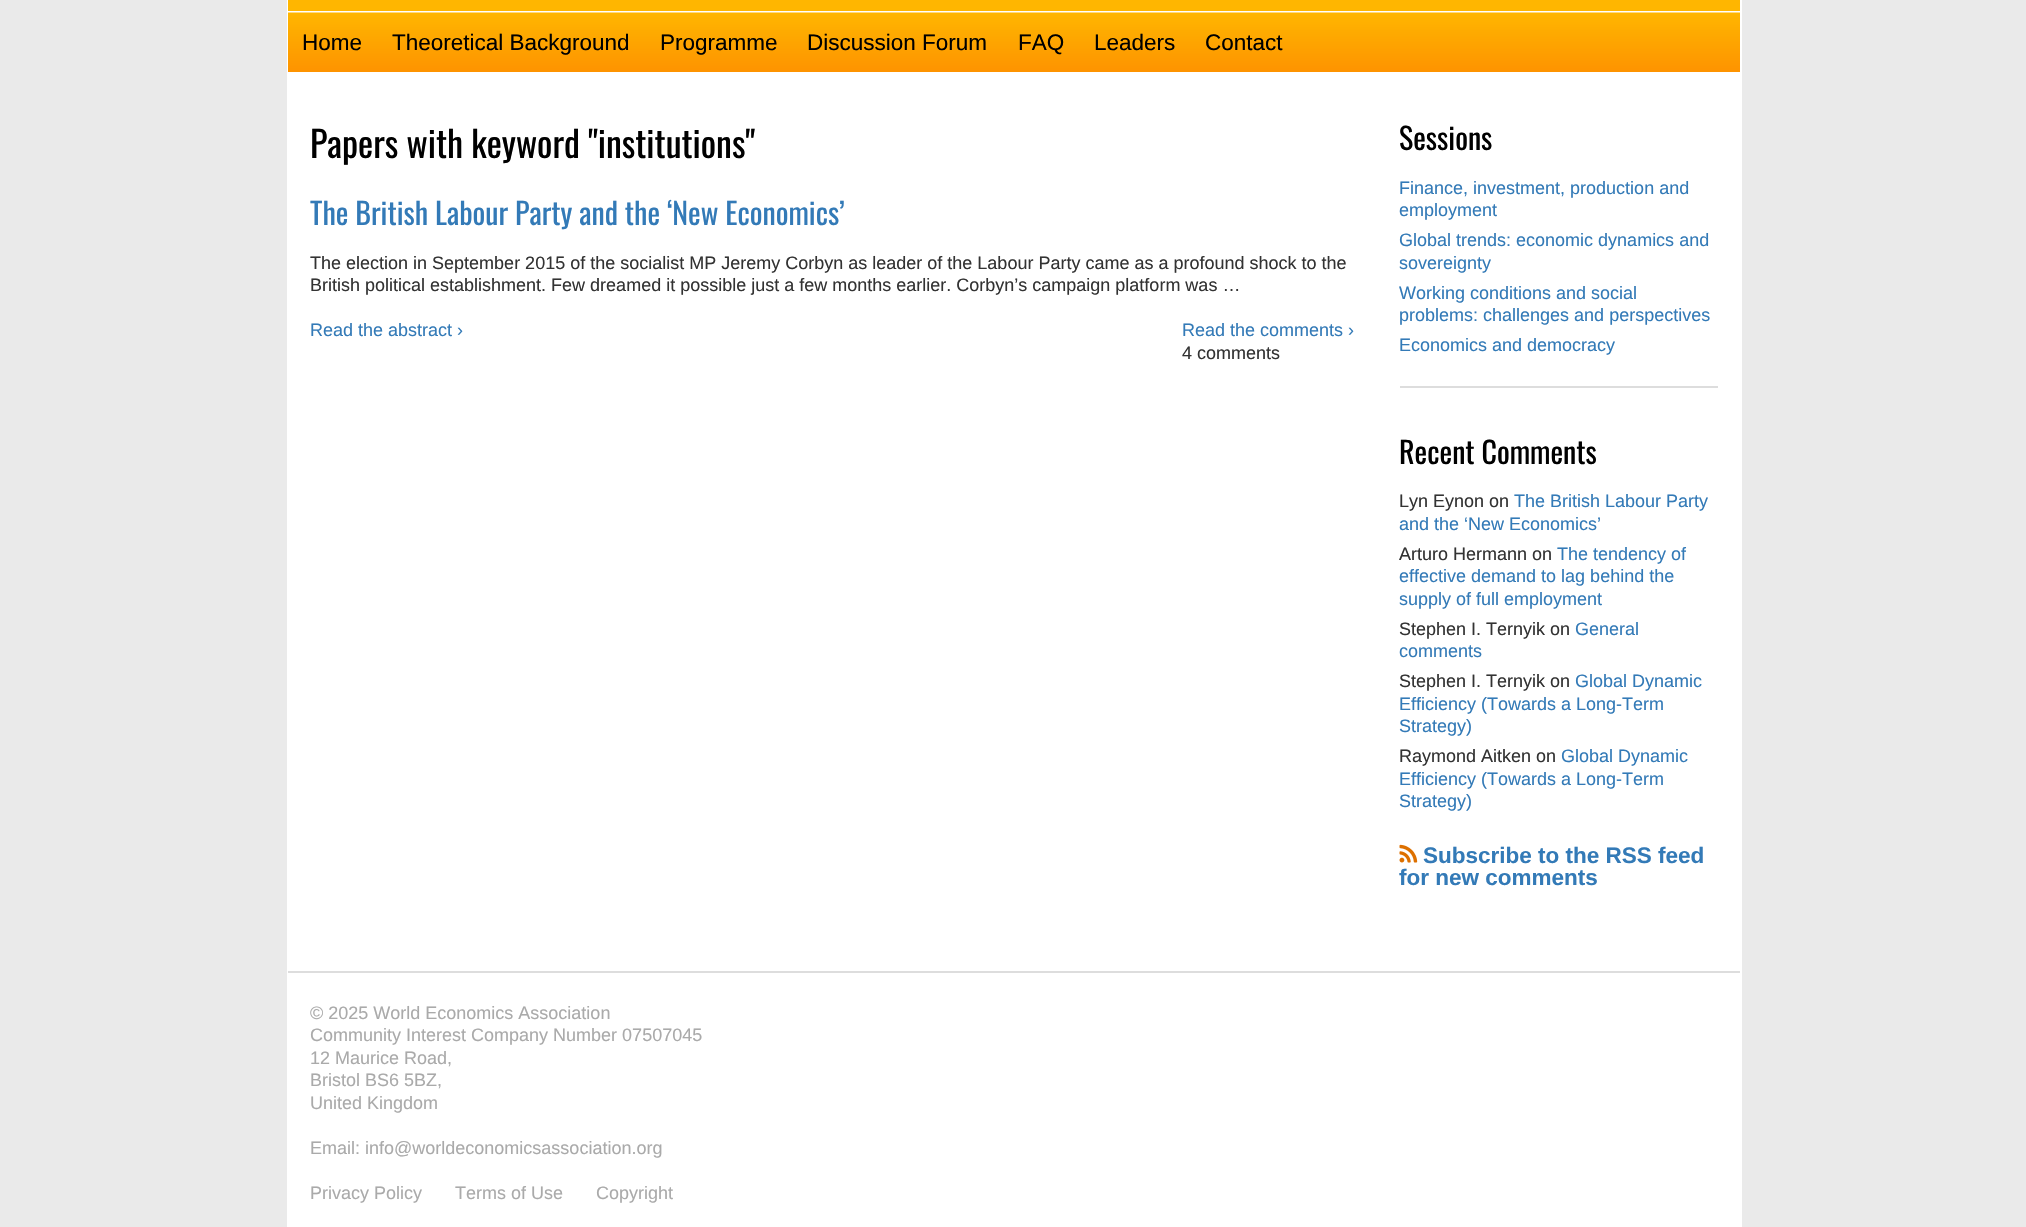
void draw(SkCanvas* canvas) {
    SkPaint paint;
    paint.setAntiAlias(true);
    canvas->clear(0xFFEAEAEA);
    paint.setColor(0xFFFFFFFF);
    canvas->drawRect(SkRect::MakeXYWH(287, 0, 1455, 1227), paint);
    paint.setColor(0xFFFFB600);
    canvas->drawRect(SkRect::MakeXYWH(288, 0, 1452, 72), paint);
    paint.setColor(0xFFFFFFFF);
    canvas->drawRect(SkRect::MakeXYWH(288, 11, 1452, 2), paint);
    {
        const SkColor colors[] = {0x80FFB600, 0x80FD7000};
        const float stops[] = {0, 1};
        const SkPoint ends[] = {{1014, 12}, {1014, 72}};
        paint.setShader(SkGradientShader::MakeLinear(ends, colors, stops, 2, SkTileMode::kClamp));
        paint.setAlpha(255);
    }
    canvas->drawRect(SkRect::MakeXYWH(288, 12, 1452, 60), paint);
    SkFont font1(fontMgr->matchFamilyStyle("Liberation Sans", SkFontStyle::Normal()), 22.5f);
    font1.setSubpixel(true);
    paint.setShader(nullptr);
    paint.setColor(0xFF000000);
    canvas->drawString("Home", 302, 50, font1, paint);
    canvas->drawString("Theoretical Background", 392, 50, font1, paint);
    canvas->drawString("Programme", 660, 50, font1, paint);
    canvas->drawString("Discussion Forum", 807, 50, font1, paint);
    canvas->drawString("FAQ", 1018, 50, font1, paint);
    canvas->drawString("Leaders", 1094, 50, font1, paint);
    canvas->drawString("Contact", 1205, 50, font1, paint);
    SkFont font2(fontMgr->matchFamilyStyle("Oswald", SkFontStyle::Normal()), 36);
    font2.setSubpixel(true);
    canvas->drawString("Papers with keyword \"institutions\"", 310, 158, font2, paint);
    SkFont font3(fontMgr->matchFamilyStyle("Oswald", SkFontStyle::Normal()), 30);
    font3.setSubpixel(true);
    paint.setColor(0xFF337AB7);
    canvas->drawString("The British Labour Party and the ‘New Economics’", 310, 225, font3, paint);
    SkFont font4(fontMgr->matchFamilyStyle("Liberation Sans", SkFontStyle::Normal()), 18);
    font4.setSubpixel(true);
    paint.setColor(0xFF333333);
    canvas->drawString("The election in September 2015 of the socialist MP Jeremy Corbyn as leader of the Labour Party came as a profound shock to the", 310, 269, font4, paint);
    canvas->drawString("British political establishment. Few dreamed it possible just a few months earlier. Corbyn’s campaign platform was …", 310, 291, font4, paint);
    paint.setColor(0xFF337AB7);
    canvas->drawString("Read the abstract ›", 310, 336, font4, paint);
    canvas->drawString("Read the comments ›", 1182, 336, font4, paint);
    paint.setColor(0xFF333333);
    canvas->drawString("4 comments", 1182, 359, font4, paint);
    paint.setColor(0xFF000000);
    canvas->drawString("Sessions", 1399, 150, font3, paint);
    paint.setColor(0xFFDDDDDD);
    canvas->drawRect(SkRect::MakeXYWH(1400, 386, 318, 2), paint);
    paint.setColor(0xFF337AB7);
    canvas->drawString("Finance, investment, production and", 1399, 194, font4, paint);
    canvas->drawString("employment", 1399, 216, font4, paint);
    canvas->drawString("Global trends: economic dynamics and", 1399, 246, font4, paint);
    canvas->drawString("sovereignty", 1399, 269, font4, paint);
    canvas->drawString("Working conditions and social", 1399, 299, font4, paint);
    canvas->drawString("problems: challenges and perspectives", 1399, 321, font4, paint);
    canvas->drawString("Economics and democracy", 1399, 351, font4, paint);
    paint.setColor(0xFF000000);
    canvas->drawString("Recent Comments", 1399, 464, font3, paint);
    paint.setColor(0xFF333333);
    canvas->drawString("Lyn Eynon on", 1399, 507, font4, paint);
    paint.setColor(0xFF337AB7);
    canvas->drawString("The British Labour Party", 1514, 507, font4, paint);
    canvas->drawString("and the ‘New Economics’", 1399, 530, font4, paint);
    paint.setColor(0xFF333333);
    canvas->drawString("Arturo Hermann on", 1399, 560, font4, paint);
    paint.setColor(0xFF337AB7);
    canvas->drawString("The tendency of", 1557, 560, font4, paint);
    canvas->drawString("effective demand to lag behind the", 1399, 582, font4, paint);
    canvas->drawString("supply of full employment", 1399, 605, font4, paint);
    paint.setColor(0xFF333333);
    canvas->drawString("Stephen I. Ternyik on", 1399, 635, font4, paint);
    paint.setColor(0xFF337AB7);
    canvas->drawString("General", 1575, 635, font4, paint);
    canvas->drawString("comments", 1399, 657, font4, paint);
    paint.setColor(0xFF333333);
    canvas->drawString("Stephen I. Ternyik on", 1399, 687, font4, paint);
    paint.setColor(0xFF337AB7);
    canvas->drawString("Global Dynamic", 1575, 687, font4, paint);
    canvas->drawString("Efficiency (Towards a Long-Term", 1399, 710, font4, paint);
    canvas->drawString("Strategy)", 1399, 732, font4, paint);
    paint.setColor(0xFF333333);
    canvas->drawString("Raymond Aitken on", 1399, 762, font4, paint);
    paint.setColor(0xFF337AB7);
    canvas->drawString("Global Dynamic", 1561, 762, font4, paint);
    canvas->drawString("Efficiency (Towards a Long-Term", 1399, 785, font4, paint);
    canvas->drawString("Strategy)", 1399, 807, font4, paint);
    canvas->drawImageRect(SkImages::DeferredFromEncodedData(SkData::MakeFromFileName("img1.png")), SkRect::MakeXYWH(1399, 844, 19, 19), SkSamplingOptions());
    SkFont font5(fontMgr->matchFamilyStyle("Liberation Sans", SkFontStyle::Bold()), 22.5f);
    font5.setSubpixel(true);
    canvas->drawString("Subscribe to the RSS feed", 1423, 863, font5, paint);
    canvas->drawString("for new comments", 1399, 885, font5, paint);
    paint.setColor(0xFFDDDDDD);
    canvas->drawRect(SkRect::MakeXYWH(288, 971, 1452, 2), paint);
    paint.setColor(0xFFAAAAAA);
    canvas->drawString("© 2025 World Economics Association", 310, 1019, font4, paint);
    canvas->drawString("Community Interest Company Number 07507045", 310, 1041, font4, paint);
    canvas->drawString("12 Maurice Road,", 310, 1064, font4, paint);
    canvas->drawString("Bristol BS6 5BZ,", 310, 1086, font4, paint);
    canvas->drawString("United Kingdom", 310, 1109, font4, paint);
    canvas->drawString("Email: info@worldeconomicsassociation.org", 310, 1154, font4, paint);
    canvas->drawString("Privacy Policy", 310, 1199, font4, paint);
    canvas->drawString("Terms of Use", 455, 1199, font4, paint);
    canvas->drawString("Copyright", 596, 1199, font4, paint);
}
